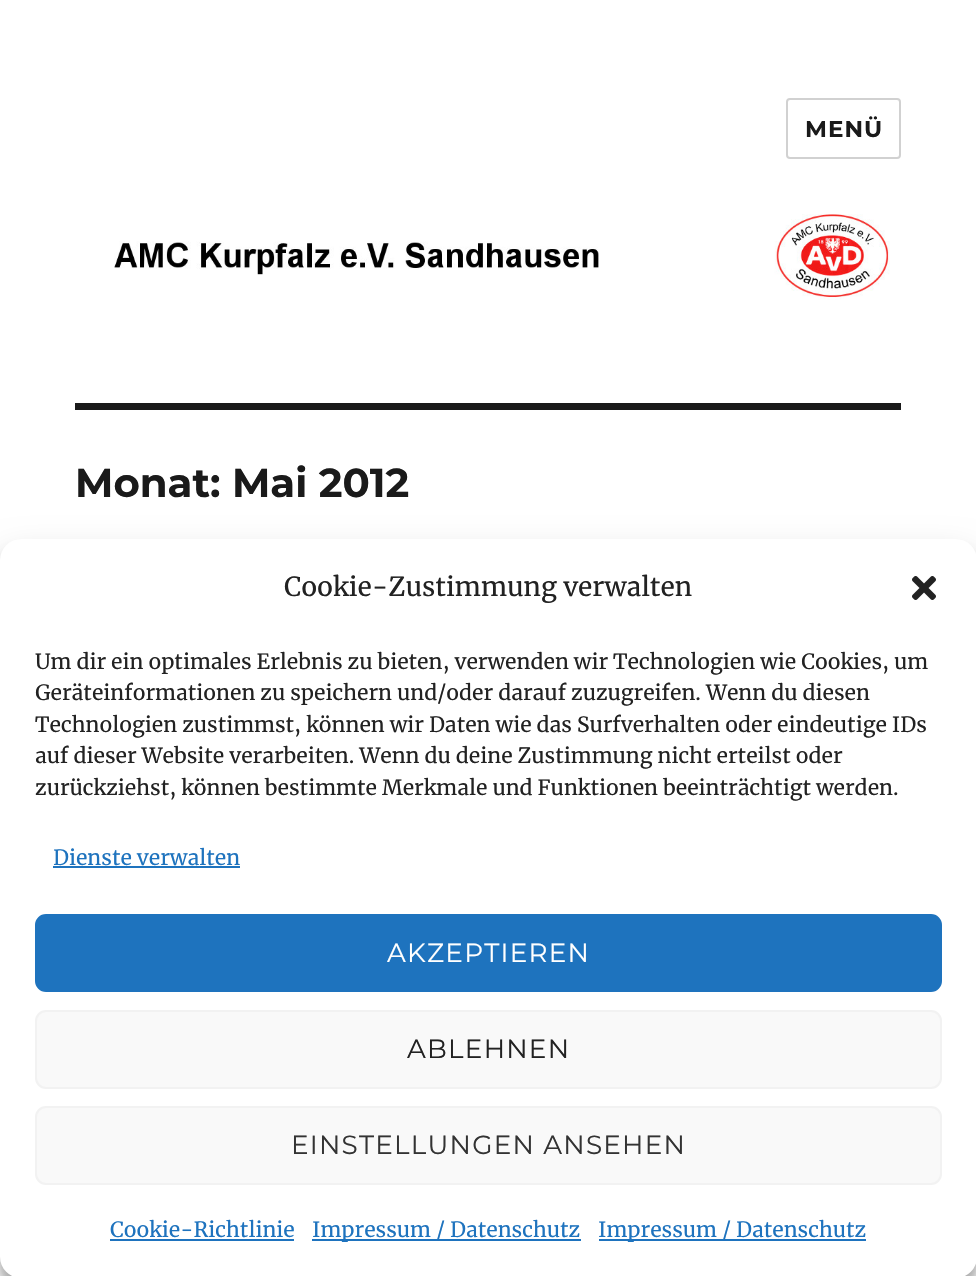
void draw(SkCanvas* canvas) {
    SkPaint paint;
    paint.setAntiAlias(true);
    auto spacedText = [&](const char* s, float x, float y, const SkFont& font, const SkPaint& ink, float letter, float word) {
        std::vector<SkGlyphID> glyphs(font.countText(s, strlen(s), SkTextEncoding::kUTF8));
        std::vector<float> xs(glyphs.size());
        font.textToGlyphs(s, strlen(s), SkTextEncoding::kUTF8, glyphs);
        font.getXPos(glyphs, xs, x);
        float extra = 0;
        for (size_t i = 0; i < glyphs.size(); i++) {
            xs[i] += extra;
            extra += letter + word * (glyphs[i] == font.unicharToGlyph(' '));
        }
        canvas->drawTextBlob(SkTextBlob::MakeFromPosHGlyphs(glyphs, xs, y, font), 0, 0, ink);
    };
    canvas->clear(0xFFFFFFFF);
    paint.setStyle(SkPaint::kStroke_Style);
    paint.setStrokeWidth(2);
    paint.setColor(0xFFD1D1D1);
    canvas->drawRoundRect(SkRect::MakeXYWH(787, 99, 113, 59), 3, 3, paint);
    SkFont font1(fontMgr->matchFamilyStyle("Montserrat", SkFontStyle(100, SkFontStyle::kNormal_Width, SkFontStyle::kUpright_Slant)), 23);
    font1.setSubpixel(true);
    paint.setStyle(SkPaint::kFill_Style);
    paint.setColor(0xFF1A1A1A);
    spacedText("MENÜ", 805, 137, font1, paint, 1, 0);
    canvas->drawImageRect(SkImages::DeferredFromEncodedData(SkData::MakeFromFileName("img1.png")), SkRect::MakeXYWH(114, 214, 776, 86), SkSamplingOptions());
    canvas->drawRect(SkRect::MakeXYWH(75, 403, 826, 7), paint);
    SkFont font2(fontMgr->matchFamilyStyle("Montserrat", SkFontStyle(100, SkFontStyle::kNormal_Width, SkFontStyle::kUpright_Slant)), 40.25f);
    font2.setSubpixel(true);
    canvas->drawString("Monat: Mai 2012", 75, 497, font2, paint);
    paint.setColor(0x3B000000);
    paint.setMaskFilter(SkMaskFilter::MakeBlur(kNormal_SkBlurStyle, 5));
    canvas->drawRoundRect(SkRect::MakeXYWH(0, 550, 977, 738), 21, 21, paint);
    paint.setMaskFilter(nullptr);
    paint.setColor(0x30000000);
    paint.setMaskFilter(SkMaskFilter::MakeBlur(kNormal_SkBlurStyle, 17.5f));
    canvas->drawRoundRect(SkRect::MakeXYWH(0, 557, 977, 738), 21, 21, paint);
    paint.setMaskFilter(nullptr);
    paint.setColor(0xFFFFFFFF);
    canvas->drawRoundRect(SkRect::MakeXYWH(0, 539, 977, 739), 21, 21, paint);
    SkFont font3(fontMgr->matchFamilyStyle("Merriweather", SkFontStyle::Normal()), 26.25f);
    font3.setSubpixel(true);
    paint.setColor(0xFF222222);
    canvas->drawString("Cookie-Zustimmung verwalten", 284, 596, font3, paint);
    canvas->drawImageRect(SkImages::DeferredFromEncodedData(SkData::MakeFromFileName("img2.png")), SkRect::MakeXYWH(912, 576, 24, 24), SkSamplingOptions());
    SkFont font4(fontMgr->matchFamilyStyle("Merriweather", SkFontStyle::Normal()), 21);
    font4.setSubpixel(true);
    canvas->drawString("Um dir ein optimales Erlebnis zu bieten, verwenden wir Technologien wie Cookies, um", 35, 669, font4, paint);
    canvas->drawString("Geräteinformationen zu speichern und/oder darauf zuzugreifen. Wenn du diesen", 35, 700, font4, paint);
    canvas->drawString("Technologien zustimmst, können wir Daten wie das Surfverhalten oder eindeutige IDs", 35, 732, font4, paint);
    canvas->drawString("auf dieser Website verarbeiten. Wenn du deine Zustimmung nicht erteilst oder", 35, 763, font4, paint);
    canvas->drawString("zurückziehst, können bestimmte Merkmale und Funktionen beeinträchtigt werden.", 35, 795, font4, paint);
    paint.setColor(0xFF1E73BE);
    canvas->drawString("Dienste verwalten", 53, 865, font4, paint);
    canvas->drawRect(SkRect::MakeXYWH(53, 866, 187, 2), paint);
    canvas->drawRoundRect(SkRect::MakeXYWH(36, 915, 905, 76), 10, 10, paint);
    paint.setStyle(SkPaint::kStroke_Style);
    canvas->drawRoundRect(SkRect::MakeXYWH(36, 915, 905, 76), 10, 10, paint);
    SkFont font5(fontMgr->matchFamilyStyle("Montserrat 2", SkFontStyle(100, SkFontStyle::kNormal_Width, SkFontStyle::kUpright_Slant)), 26.25f);
    font5.setSubpixel(true);
    paint.setStyle(SkPaint::kFill_Style);
    paint.setColor(0xFFFFFFFF);
    spacedText("AKZEPTIEREN", 387, 962, font5, paint, 1.25f, 0);
    paint.setColor(0xFFF9F9F9);
    canvas->drawRoundRect(SkRect::MakeXYWH(36, 1011, 905, 77), 10, 10, paint);
    paint.setStyle(SkPaint::kStroke_Style);
    paint.setColor(0xFFF2F2F2);
    canvas->drawRoundRect(SkRect::MakeXYWH(36, 1011, 905, 77), 10, 10, paint);
    paint.setStyle(SkPaint::kFill_Style);
    paint.setColor(0xFF222222);
    spacedText("ABLEHNEN", 407, 1058, font5, paint, 1.25f, 0);
    paint.setColor(0xFFF9F9F9);
    canvas->drawRoundRect(SkRect::MakeXYWH(36, 1107, 905, 77), 10, 10, paint);
    paint.setStyle(SkPaint::kStroke_Style);
    paint.setColor(0xFFF2F2F2);
    canvas->drawRoundRect(SkRect::MakeXYWH(36, 1107, 905, 77), 10, 10, paint);
    paint.setStyle(SkPaint::kFill_Style);
    paint.setColor(0xFF333333);
    spacedText("EINSTELLUNGEN ANSEHEN", 291, 1154, font5, paint, 1.25f, 0);
    paint.setColor(0xFF1E73BE);
    canvas->drawString("Cookie-Richtlinie", 110, 1237, font4, paint);
    canvas->drawRect(SkRect::MakeXYWH(110, 1239, 184, 2), paint);
    canvas->drawRect(SkRect::MakeXYWH(312, 1239, 269, 2), paint);
    canvas->drawString("Impressum / Datenschutz", 312, 1237, font4, paint);
    canvas->drawRect(SkRect::MakeXYWH(599, 1239, 267, 2), paint);
    canvas->drawString("Impressum / Datenschutz", 598, 1237, font4, paint);
}
